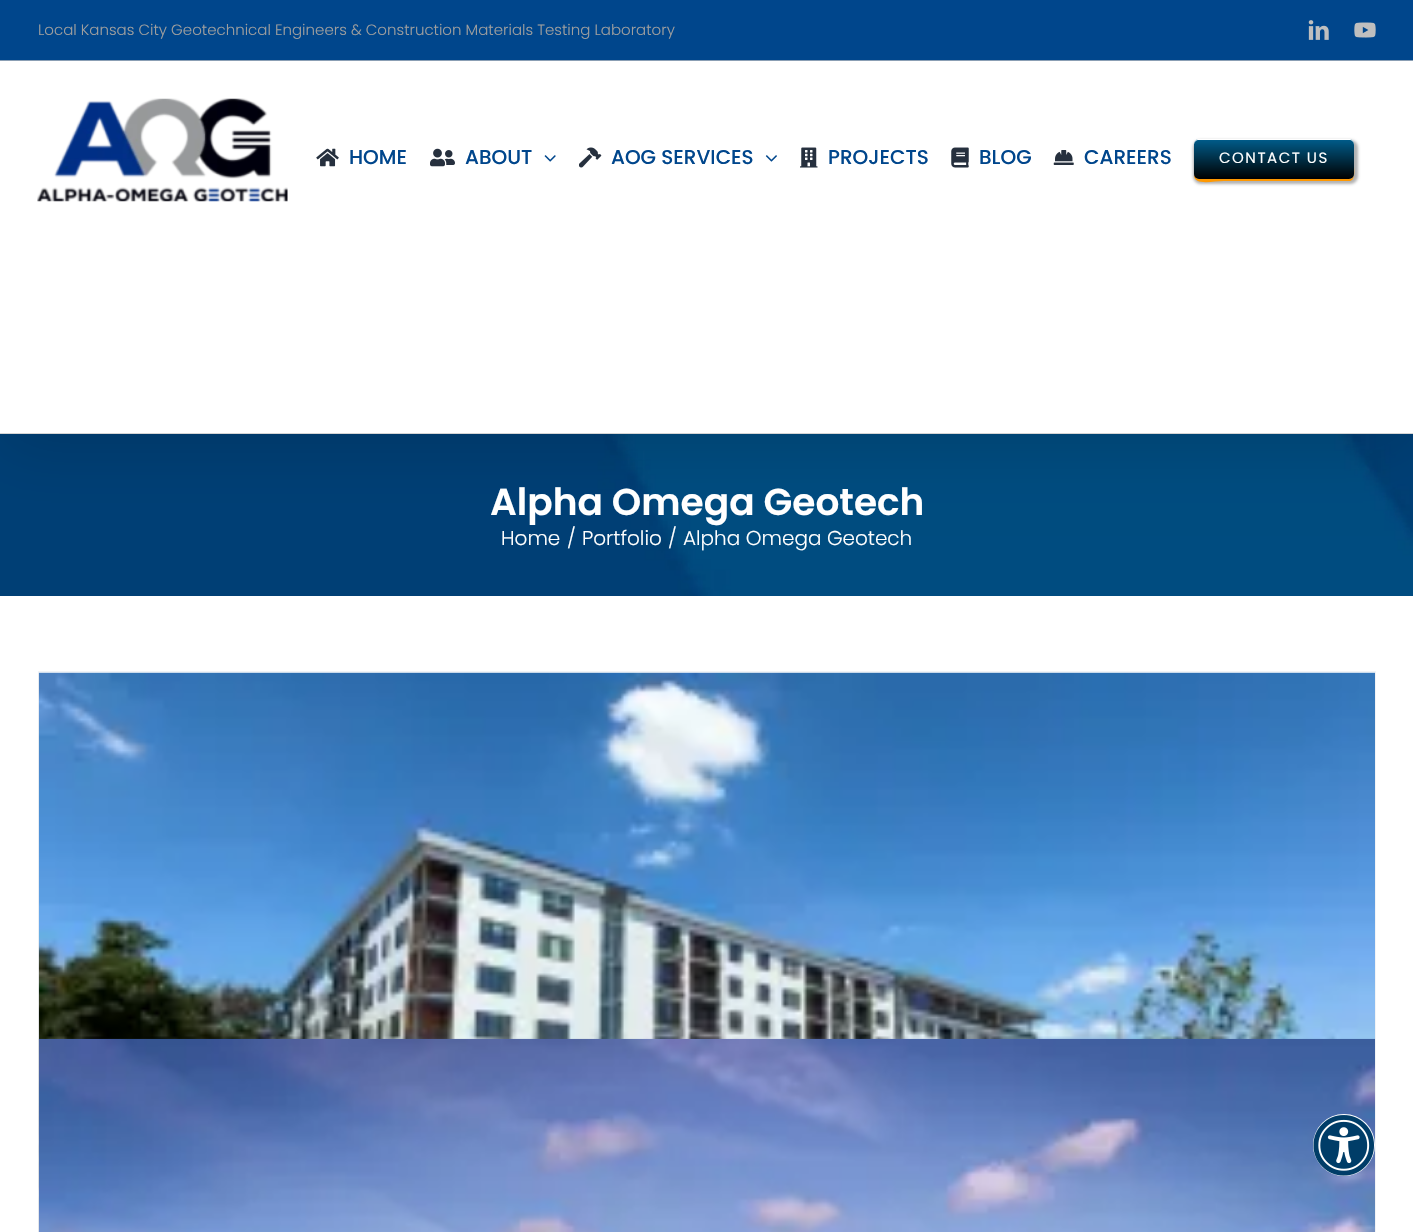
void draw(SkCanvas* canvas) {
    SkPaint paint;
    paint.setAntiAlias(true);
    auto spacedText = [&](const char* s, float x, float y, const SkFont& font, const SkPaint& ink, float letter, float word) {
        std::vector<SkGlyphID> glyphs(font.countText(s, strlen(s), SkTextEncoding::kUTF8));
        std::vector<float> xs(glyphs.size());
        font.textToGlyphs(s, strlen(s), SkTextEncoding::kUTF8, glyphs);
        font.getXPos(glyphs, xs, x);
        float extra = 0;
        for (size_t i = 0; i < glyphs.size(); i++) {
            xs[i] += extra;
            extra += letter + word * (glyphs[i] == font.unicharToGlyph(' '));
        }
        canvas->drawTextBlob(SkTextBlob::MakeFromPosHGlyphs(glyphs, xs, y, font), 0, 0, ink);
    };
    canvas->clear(0xFFFFFFFF);
    canvas->drawImageRect(SkImages::DeferredFromEncodedData(SkData::MakeFromFileName("img12.png")), SkRect::MakeXYWH(0, 434, 1413, 162), SkSamplingOptions());
    paint.setColor(0x24000000);
    paint.setMaskFilter(SkMaskFilter::MakeBlur(kNormal_SkBlurStyle, 31));
    canvas->drawRect(SkRect::MakeXYWH(3, 15, 1408, 429), paint);
    paint.setMaskFilter(nullptr);
    paint.setColor(0xFF00468C);
    canvas->drawRect(SkRect::MakeXYWH(0, 0, 1413, 60), paint);
    paint.setColor(0xFF8B9FB4);
    canvas->drawRect(SkRect::MakeXYWH(0, 60, 1413, 1), paint);
    SkFont font1(fontMgr->matchFamilyStyle("Poppins", SkFontStyle(300, SkFontStyle::kNormal_Width, SkFontStyle::kUpright_Slant)), 15);
    font1.setSubpixel(true);
    paint.setColor(0xFF9E9E9E);
    canvas->drawString("Local Kansas City Geotechnical Engineers & Construction Materials Testing Laboratory", 38, 35, font1, paint);
    canvas->drawImageRect(SkImages::DeferredFromEncodedData(SkData::MakeFromFileName("img1.png")), SkRect::MakeXYWH(1308, 20, 21, 20), SkSamplingOptions());
    canvas->drawImageRect(SkImages::DeferredFromEncodedData(SkData::MakeFromFileName("img2.png")), SkRect::MakeXYWH(1354, 22, 22, 16), SkSamplingOptions());
    paint.setColor(0xFFFFFFFF);
    canvas->drawRect(SkRect::MakeXYWH(0, 61, 1413, 372), paint);
    paint.setColor(0xFFD5D5D5);
    canvas->drawRect(SkRect::MakeXYWH(0, 433, 1413, 1), paint);
    canvas->drawImageRect(SkImages::DeferredFromEncodedData(SkData::MakeFromFileName("img3.png")), SkRect::MakeXYWH(37, 98, 251, 104), SkSamplingOptions());
    canvas->drawImageRect(SkImages::DeferredFromEncodedData(SkData::MakeFromFileName("img4.png")), SkRect::MakeXYWH(316, 148, 23, 19), SkSamplingOptions());
    SkFont font2(fontMgr->matchFamilyStyle("Poppins", SkFontStyle(500, SkFontStyle::kNormal_Width, SkFontStyle::kUpright_Slant)), 20);
    font2.setSubpixel(true);
    paint.setColor(0xFF00468C);
    canvas->drawString("HOME", 349, 164, font2, paint);
    canvas->drawImageRect(SkImages::DeferredFromEncodedData(SkData::MakeFromFileName("img5.png")), SkRect::MakeXYWH(430, 148, 25, 19), SkSamplingOptions());
    canvas->drawString("ABOUT", 465, 164, font2, paint);
    canvas->drawImageRect(SkImages::DeferredFromEncodedData(SkData::MakeFromFileName("img6.png")), SkRect::MakeXYWH(544, 155, 12, 7), SkSamplingOptions());
    canvas->drawImageRect(SkImages::DeferredFromEncodedData(SkData::MakeFromFileName("img7.png")), SkRect::MakeXYWH(579, 147, 23, 21), SkSamplingOptions());
    canvas->drawString("AOG SERVICES", 611, 164, font2, paint);
    canvas->drawImageRect(SkImages::DeferredFromEncodedData(SkData::MakeFromFileName("img8.png")), SkRect::MakeXYWH(765, 155, 12, 7), SkSamplingOptions());
    canvas->drawImageRect(SkImages::DeferredFromEncodedData(SkData::MakeFromFileName("img9.png")), SkRect::MakeXYWH(800, 147, 18, 21), SkSamplingOptions());
    canvas->drawString("PROJECTS", 828, 164, font2, paint);
    canvas->drawImageRect(SkImages::DeferredFromEncodedData(SkData::MakeFromFileName("img10.png")), SkRect::MakeXYWH(951, 147, 18, 21), SkSamplingOptions());
    canvas->drawString("BLOG", 979, 164, font2, paint);
    canvas->drawImageRect(SkImages::DeferredFromEncodedData(SkData::MakeFromFileName("img11.png")), SkRect::MakeXYWH(1053, 150, 21, 15), SkSamplingOptions());
    canvas->drawString("CAREERS", 1084, 164, font2, paint);
    paint.setColor(0x4D000000);
    paint.setMaskFilter(SkMaskFilter::MakeBlur(kNormal_SkBlurStyle, 1.5f));
    canvas->drawRoundRect(SkRect::MakeXYWH(1193, 140, 165, 44), 8, 8, paint);
    paint.setMaskFilter(nullptr);
    paint.setColor(0xFFFF9800);
    canvas->drawPath(SkPathBuilder().moveTo(1194, 175).cubicTo(1194, 186, 1213, 181, 1224, 181).lineTo(1349, 181).cubicTo(1356, 181, 1354, 170, 1354, 166).lineTo(1354, 144).lineTo(1354, 174).cubicTo(1354, 177, 1352, 179, 1349, 179).lineTo(1199, 179).cubicTo(1197, 179, 1195, 177, 1194, 175).close().detach(), paint);
    {
        const SkColor colors[] = {0xFF005D8C, 0xFF000000};
        const float stops[] = {0, 1};
        const SkPoint ends[] = {{1274, 139}, {1274, 179}};
        paint.setShader(SkGradientShader::MakeLinear(ends, colors, stops, 2, SkTileMode::kClamp));
        paint.setAlpha(255);
    }
    canvas->drawRoundRect(SkRect::MakeXYWH(1194, 139, 160, 40), 5, 5, paint);
    paint.setShader(nullptr);
    paint.setColor(0xFFFFFFFF);
    canvas->drawPath(SkPathBuilder().moveTo(1199, 140).lineTo(1349, 140).cubicTo(1352, 140, 1354, 142, 1354, 145).lineTo(1354, 144).cubicTo(1354, 141, 1352, 139, 1349, 139).lineTo(1199, 139).cubicTo(1196, 139, 1194, 141, 1194, 144).lineTo(1194, 145).cubicTo(1194, 142, 1196, 140, 1199, 140).close().detach(), paint);
    SkFont font3(fontMgr->matchFamilyStyle("Poppins", SkFontStyle::Normal()), 15);
    font3.setSubpixel(true);
    spacedText("CONTACT US", 1219, 163, font3, paint, 1.5f, 0);
    SkFont font4(fontMgr->matchFamilyStyle("Poppins", SkFontStyle(600, SkFontStyle::kNormal_Width, SkFontStyle::kUpright_Slant)), 37.5f);
    font4.setSubpixel(true);
    canvas->drawString("Alpha Omega Geotech", 490, 515, font4, paint);
    SkFont font5(fontMgr->matchFamilyStyle("Poppins", SkFontStyle(300, SkFontStyle::kNormal_Width, SkFontStyle::kUpright_Slant)), 20);
    font5.setSubpixel(true);
    canvas->drawString("Home", 501, 545, font5, paint);
    canvas->drawString("/", 567, 545, font5, paint);
    canvas->drawString("Portfolio", 582, 545, font5, paint);
    canvas->drawString("/", 668, 545, font5, paint);
    canvas->drawString("Alpha Omega Geotech", 683, 545, font5, paint);
    paint.setColor(0xFFF2F3F5);
    canvas->drawRect(SkRect::MakeXYWH(38, 671, 1338, 1), paint);
    canvas->drawRect(SkRect::MakeXYWH(1375, 671, 1, 561), paint);
    canvas->drawRect(SkRect::MakeXYWH(38, 671, 1, 561), paint);
    canvas->drawRect(SkRect::MakeXYWH(38, 1038, 1338, 1), paint);
    canvas->drawImageRect(SkImages::DeferredFromEncodedData(SkData::MakeFromFileName("img13.png")), SkRect::MakeXYWH(38, 672, 1337, 560), SkSamplingOptions());
    canvas->drawImageRect(SkImages::DeferredFromEncodedData(SkData::MakeFromFileName("img14.png")), SkRect::MakeXYWH(38, 1038, 1337, 194), SkSamplingOptions());
    paint.setColor(0xFFFFFFFF);
    canvas->drawCircle(1344, 1145, 31, paint);
    canvas->drawImageRect(SkImages::DeferredFromEncodedData(SkData::MakeFromFileName("img15.png")), SkRect::MakeXYWH(1313, 1115, 61, 61), SkSamplingOptions());
}
